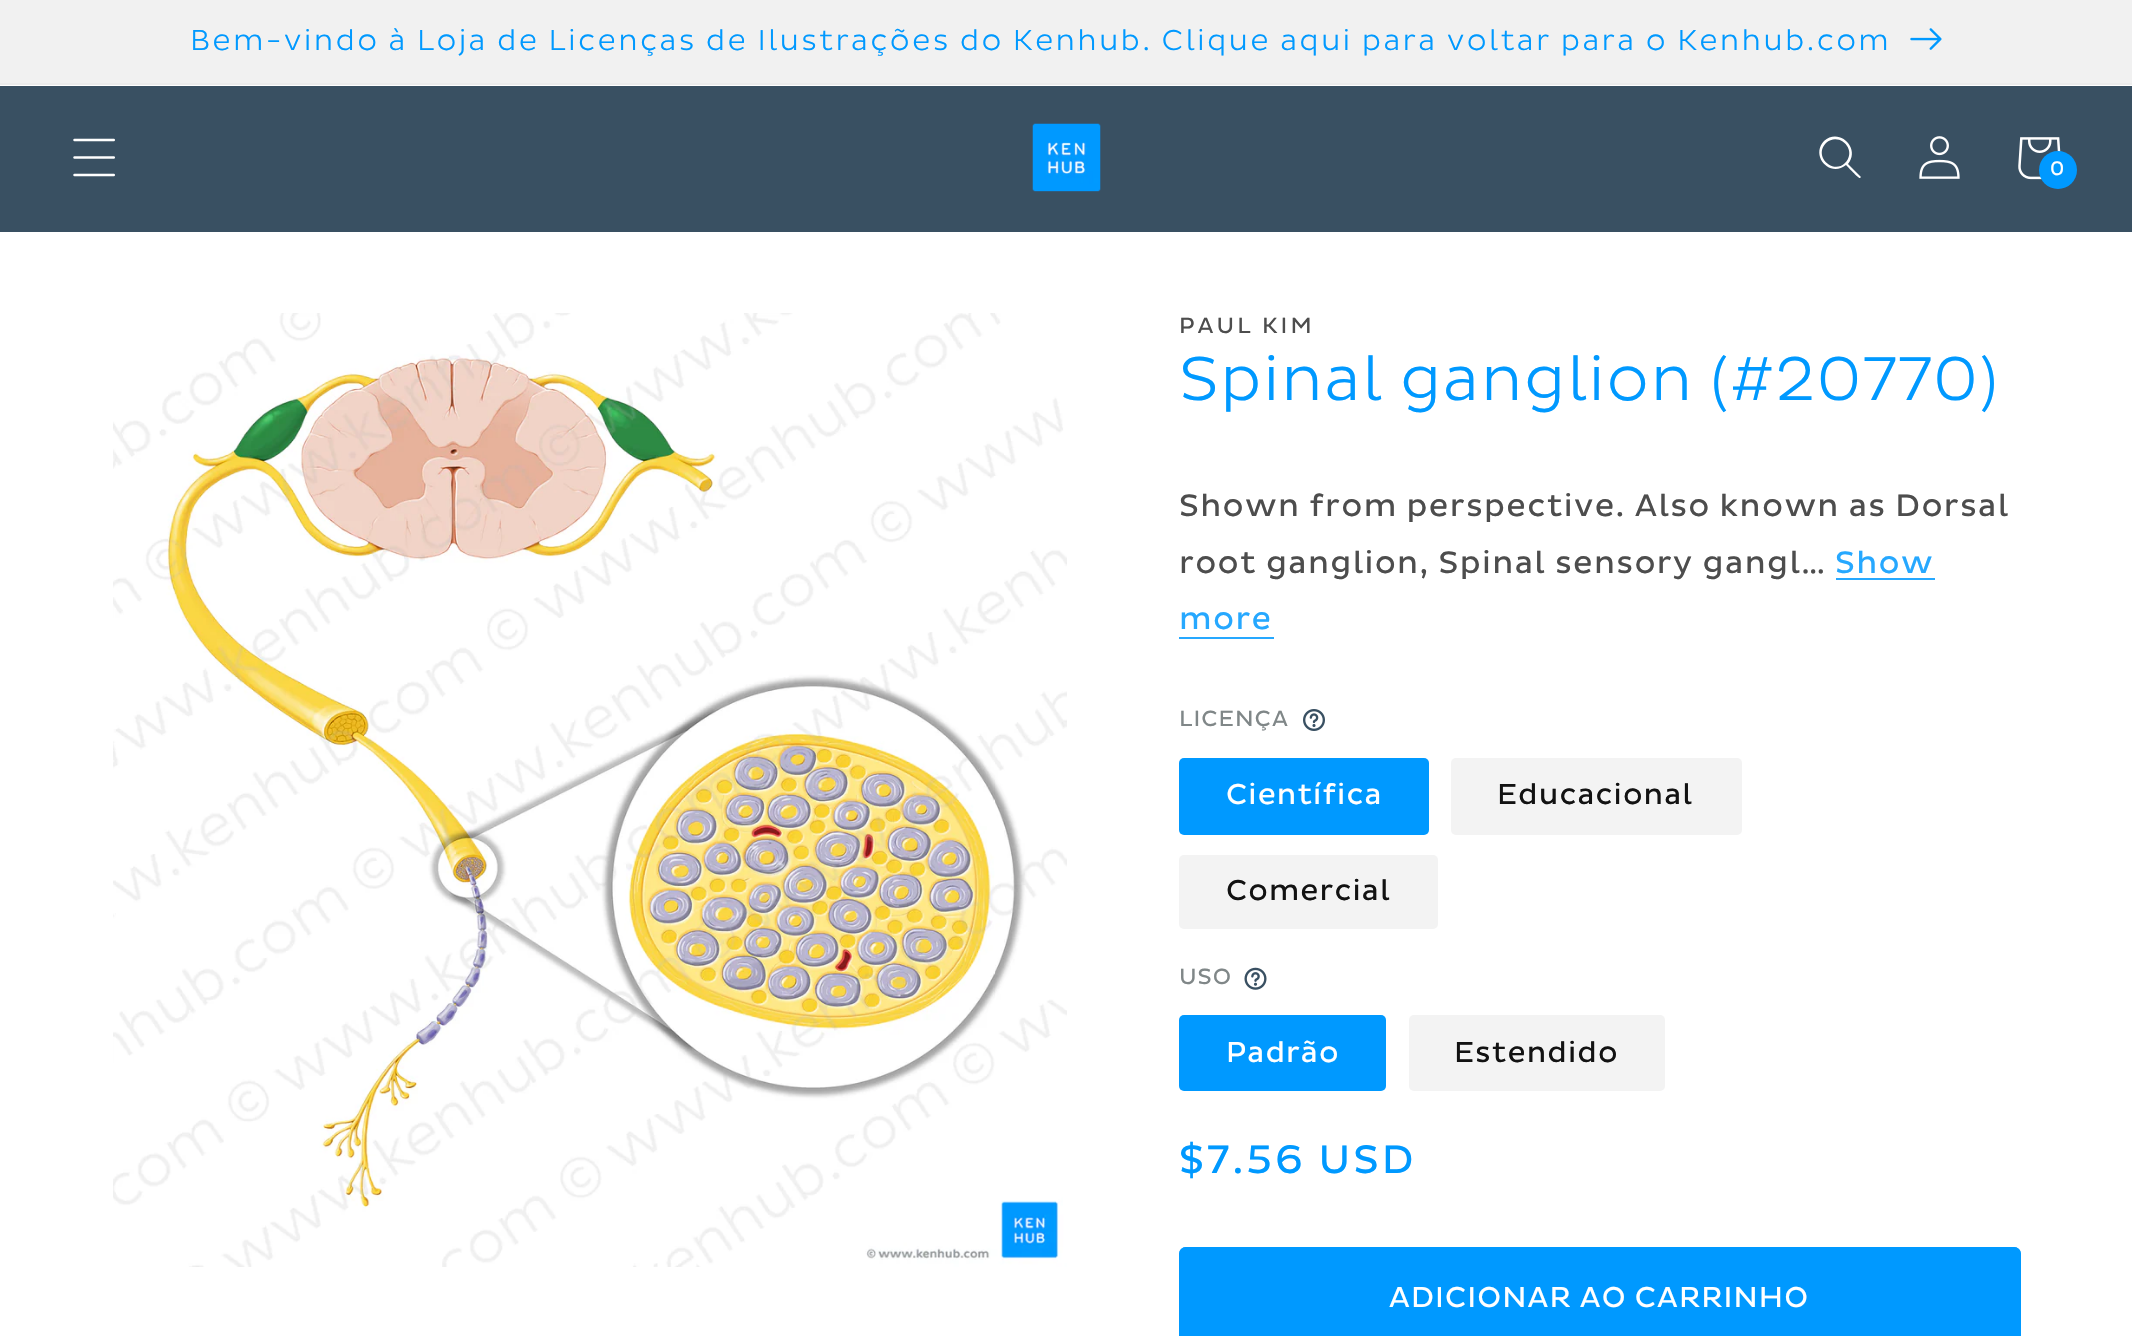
void draw(SkCanvas* canvas) {
    SkPaint paint;
    paint.setAntiAlias(true);
    auto spacedText = [&](const char* s, float x, float y, const SkFont& font, const SkPaint& ink, float letter, float word) {
        std::vector<SkGlyphID> glyphs(font.countText(s, strlen(s), SkTextEncoding::kUTF8));
        std::vector<float> xs(glyphs.size());
        font.textToGlyphs(s, strlen(s), SkTextEncoding::kUTF8, glyphs);
        font.getXPos(glyphs, xs, x);
        float extra = 0;
        for (size_t i = 0; i < glyphs.size(); i++) {
            xs[i] += extra;
            extra += letter + word * (glyphs[i] == font.unicharToGlyph(' '));
        }
        canvas->drawTextBlob(SkTextBlob::MakeFromPosHGlyphs(glyphs, xs, y, font), 0, 0, ink);
    };
    canvas->clear(0xFFFFFFFF);
    paint.setColor(0xFFECECEC);
    canvas->drawRect(SkRect::MakeXYWH(0, 83, 2132, 2), paint);
    paint.setColor(0xFFF1F1F1);
    canvas->drawRect(SkRect::MakeXYWH(0, 0, 2132, 83), paint);
    SkFont font1(fontMgr->matchFamilyStyle("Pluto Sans", SkFontStyle(300, SkFontStyle::kNormal_Width, SkFontStyle::kUpright_Slant)), 29.25f);
    font1.setSubpixel(true);
    paint.setColor(0xFF0099FF);
    spacedText("Bem-vindo à Loja de Licenças de Ilustrações do Kenhub. Clique aqui para voltar para o Kenhub.com", 190, 50, font1, paint, 2.25f, 0);
    canvas->drawImageRect(SkImages::DeferredFromEncodedData(SkData::MakeFromFileName("img1.png")), SkRect::MakeXYWH(1910, 28, 32, 22), SkSamplingOptions());
    paint.setColor(0xFF395062);
    canvas->drawRect(SkRect::MakeXYWH(0, 86, 2132, 146), paint);
    canvas->drawImageRect(SkImages::DeferredFromEncodedData(SkData::MakeFromFileName("img2.png")), SkRect::MakeXYWH(73, 138, 42, 39), SkSamplingOptions());
    canvas->drawImageRect(SkImages::DeferredFromEncodedData(SkData::MakeFromFileName("img3.png")), SkRect::MakeXYWH(1032, 123, 69, 69), SkSamplingOptions());
    paint.setColor(0xFFFFFFFF);
    canvas->drawPath(SkPathBuilder(SkPathFillType::kEvenOdd).moveTo(1845, 163).cubicTo(1833, 175, 1813, 156, 1826, 143).cubicTo(1839, 131, 1858, 150, 1845, 163).close().moveTo(1846, 165).cubicTo(1830, 178, 1810, 156, 1824, 141).cubicTo(1839, 127, 1861, 148, 1848, 164).lineTo(1861, 177).lineTo(1860, 178).cubicTo(1859, 179, 1848, 167, 1846, 165).close().detach(), paint);
    canvas->drawImageRect(SkImages::DeferredFromEncodedData(SkData::MakeFromFileName("img4.png")), SkRect::MakeXYWH(1919, 136, 41, 43), SkSamplingOptions());
    canvas->drawImageRect(SkImages::DeferredFromEncodedData(SkData::MakeFromFileName("img5.png")), SkRect::MakeXYWH(2018, 137, 43, 43), SkSamplingOptions());
    paint.setColor(0xFF0099FF);
    canvas->drawCircle(2058, 170, 19, paint);
    SkFont font2(fontMgr->matchFamilyStyle("Pluto Sans", SkFontStyle::Normal()), 20);
    font2.setSubpixel(true);
    paint.setColor(0xFFFFFFFF);
    spacedText("0", 2050, 175, font2, paint, 1.35f, 0);
    canvas->drawImageRect(SkImages::DeferredFromEncodedData(SkData::MakeFromFileName("img6.png")), SkRect::MakeXYWH(113, 313, 954, 954), SkSamplingOptions());
    SkFont font3(fontMgr->matchFamilyStyle("Pluto Sans", SkFontStyle::Normal()), 22.5f);
    font3.setSubpixel(true);
    paint.setColor(0xFF4D4D4D);
    spacedText("PAUL KIM", 1179, 333, font3, paint, 3, 0);
    SkFont font4(fontMgr->matchFamilyStyle("Pluto Sans", SkFontStyle(300, SkFontStyle::kNormal_Width, SkFontStyle::kUpright_Slant)), 63);
    font4.setSubpixel(true);
    paint.setColor(0xFF0099FF);
    spacedText("Spinal ganglion (#20770)", 1179, 400, font4, paint, 1.35f, 0);
    SkFont font5(fontMgr->matchFamilyStyle("Pluto Sans", SkFontStyle::Normal()), 31.5f);
    font5.setSubpixel(true);
    paint.setColor(0xFF4D4D4D);
    spacedText("Shown from perspective. Also known as Dorsal", 1179, 516, font5, paint, 1.35f, 0);
    spacedText("root ganglion, Spinal sensory gangl…", 1179, 573, font5, paint, 1.35f, 0);
    paint.setColor(0xFF26A8FF);
    spacedText("Show", 1835, 573, font5, paint, 1.35f, 0);
    canvas->drawRect(SkRect::MakeXYWH(1836, 578, 99, 2), paint);
    spacedText("more", 1179, 629, font5, paint, 1.35f, 0);
    canvas->drawRect(SkRect::MakeXYWH(1179, 637, 95, 2), paint);
    paint.setColor(0xFF808788);
    spacedText("LICENÇA", 1179, 726, font3, paint, 1, 0);
    canvas->drawImageRect(SkImages::DeferredFromEncodedData(SkData::MakeFromFileName("img7.png")), SkRect::MakeXYWH(1303, 709, 22, 22), SkSamplingOptions());
    paint.setColor(0xFF0099FF);
    canvas->drawRoundRect(SkRect::MakeXYWH(1179, 758, 250, 77), 5, 5, paint);
    SkFont font6(fontMgr->matchFamilyStyle("Pluto Sans", SkFontStyle::Normal()), 29.25f);
    font6.setSubpixel(true);
    paint.setColor(0xFFFFFFFF);
    spacedText("Científica", 1226, 804, font6, paint, 1.1f, 0);
    paint.setColor(0xFFF3F3F3);
    canvas->drawRoundRect(SkRect::MakeXYWH(1451, 758, 291, 77), 5, 5, paint);
    paint.setColor(0xFF121212);
    spacedText("Educacional", 1497, 804, font6, paint, 1.1f, 0);
    paint.setColor(0xFFF3F3F3);
    canvas->drawRoundRect(SkRect::MakeXYWH(1179, 855, 259, 74), 5, 5, paint);
    paint.setColor(0xFF121212);
    spacedText("Comercial", 1226, 900, font6, paint, 1.1f, 0);
    paint.setColor(0xFF808788);
    spacedText("USO", 1179, 984, font3, paint, 1, 0);
    canvas->drawImageRect(SkImages::DeferredFromEncodedData(SkData::MakeFromFileName("img8.png")), SkRect::MakeXYWH(1244, 967, 23, 23), SkSamplingOptions());
    paint.setColor(0xFF0099FF);
    canvas->drawRoundRect(SkRect::MakeXYWH(1179, 1015, 207, 76), 5, 5, paint);
    paint.setColor(0xFFFFFFFF);
    spacedText("Padrão", 1226, 1062, font6, paint, 1.1f, 0);
    paint.setColor(0xFFF3F3F3);
    canvas->drawRoundRect(SkRect::MakeXYWH(1409, 1015, 256, 76), 5, 5, paint);
    paint.setColor(0xFF121212);
    spacedText("Estendido", 1454, 1062, font6, paint, 1.1f, 0);
    SkFont font7(fontMgr->matchFamilyStyle("Pluto Sans", SkFontStyle::Normal()), 40.5f);
    font7.setSubpixel(true);
    paint.setColor(0xFF0099FF);
    spacedText("$7.56 USD", 1179, 1173, font7, paint, 3, 0);
    canvas->drawRoundRect(SkRect::MakeXYWH(1179, 1247, 842, 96), 7, 7, paint);
    paint.setStyle(SkPaint::kStroke_Style);
    paint.setStrokeWidth(2);
    canvas->drawRoundRect(SkRect::MakeXYWH(1180, 1248, 840, 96), 6, 6, paint);
    paint.setStyle(SkPaint::kFill_Style);
    paint.setColor(0xFFFFFFFF);
    spacedText("ADICIONAR AO CARRINHO", 1389, 1307, font6, paint, 1.1f, 0);
}
